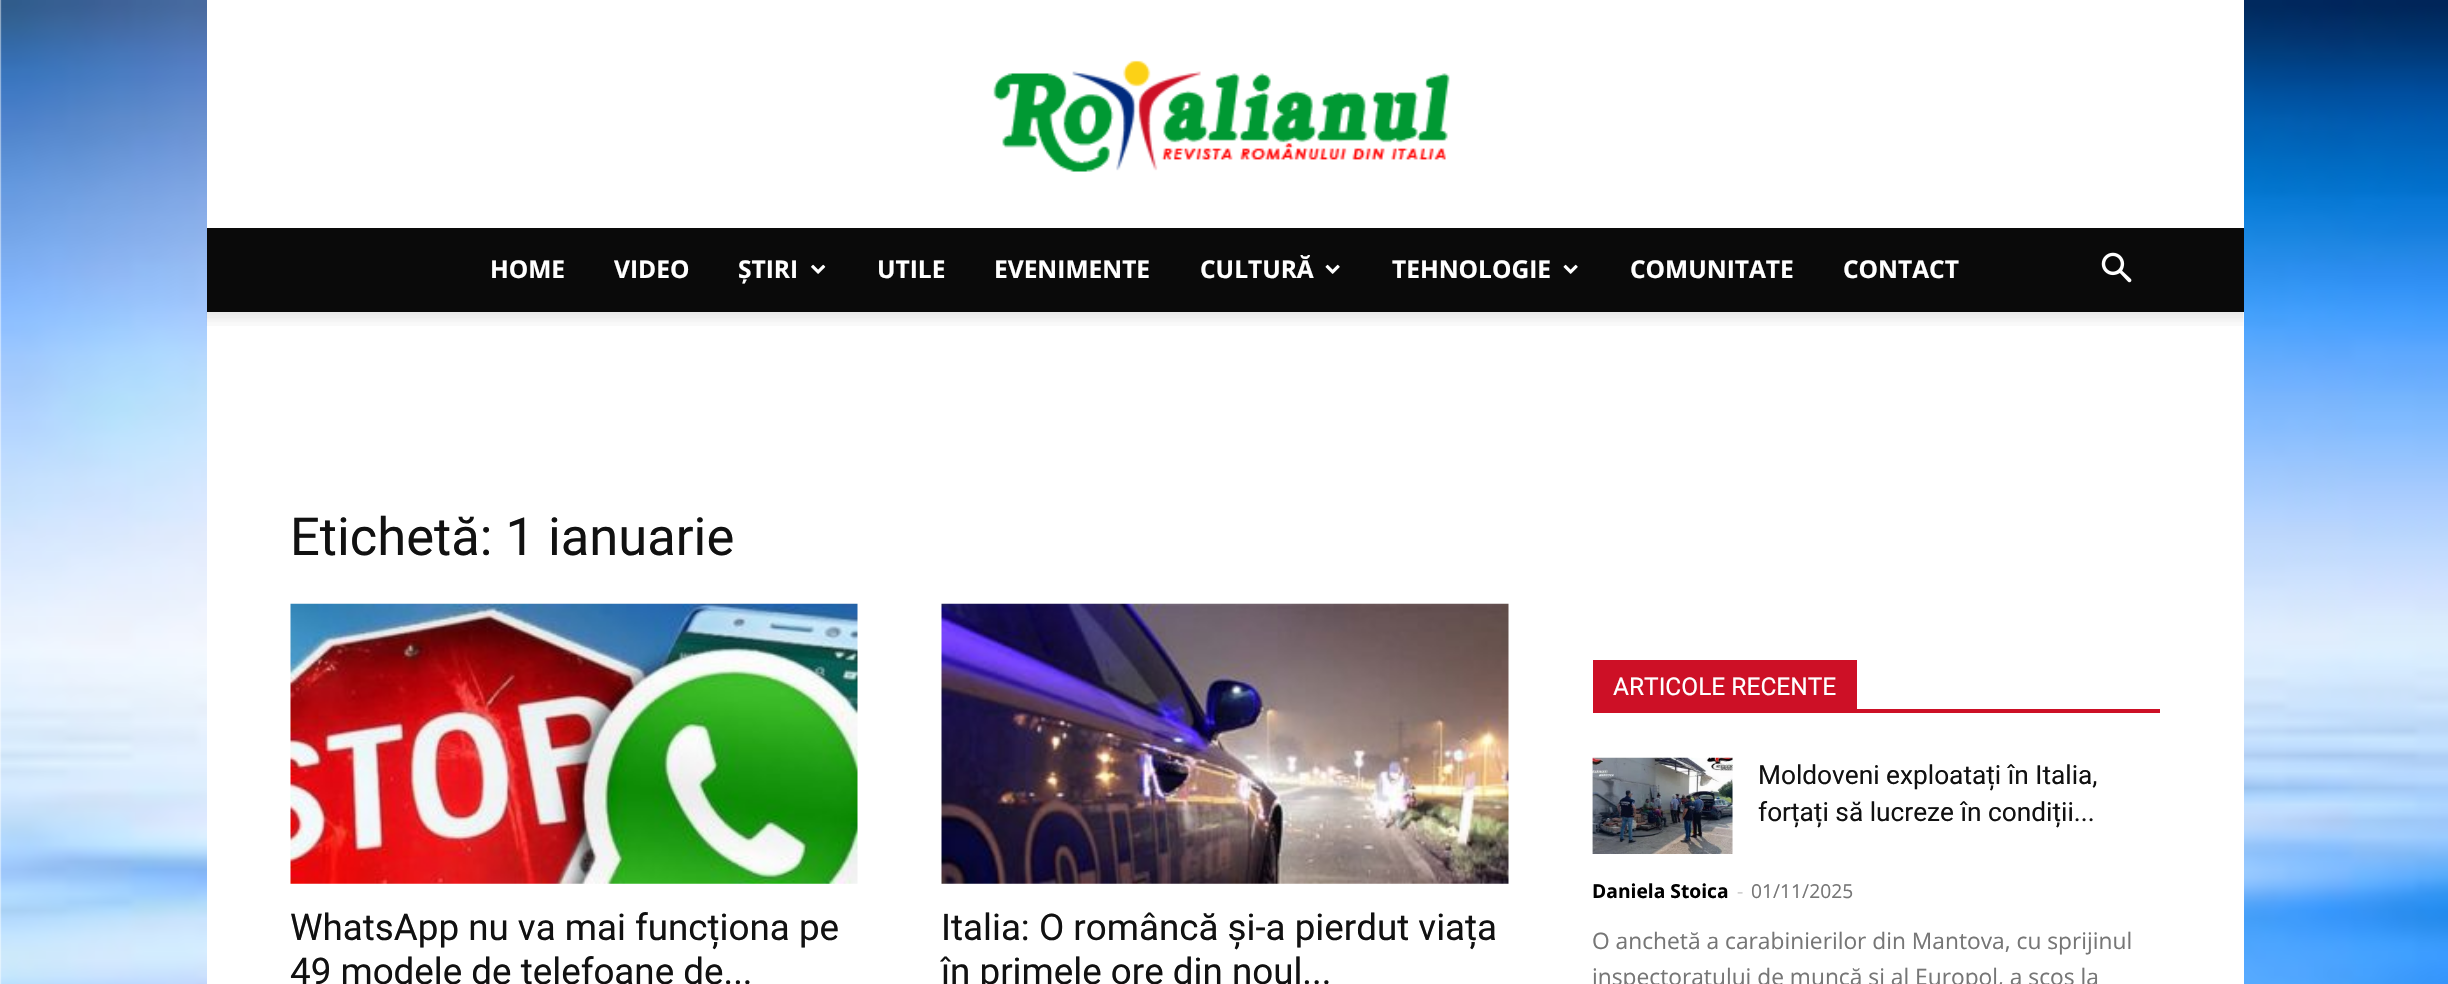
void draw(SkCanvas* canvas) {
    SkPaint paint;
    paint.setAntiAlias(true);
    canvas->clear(0xFFFFFFFF);
    canvas->drawImageRect(SkImages::DeferredFromEncodedData(SkData::MakeFromFileName("img1.png")), SkRect::MakeXYWH(0, 0, 2448, 984), SkSamplingOptions());
    paint.setColor(0xFFFFFFFF);
    canvas->drawRect(SkRect::MakeXYWH(207, 0, 2037, 228), paint);
    canvas->drawImageRect(SkImages::DeferredFromEncodedData(SkData::MakeFromFileName("img2.png")), SkRect::MakeXYWH(993, 60, 457, 112), SkSamplingOptions());
    paint.setColor(0xFF0A0A0A);
    canvas->drawRect(SkRect::MakeXYWH(207, 228, 2037, 84), paint);
    SkFont font1(fontMgr->matchFamilyStyle("Open Sans", SkFontStyle::Bold()), 24.5f);
    font1.setSubpixel(true);
    paint.setColor(0xFFFFFFFF);
    canvas->drawString("HOME", 490, 278, font1, paint);
    canvas->drawString("VIDEO", 614, 278, font1, paint);
    canvas->drawString("ȘTIRI", 738, 278, font1, paint);
    canvas->drawImageRect(SkImages::DeferredFromEncodedData(SkData::MakeFromFileName("img3.png")), SkRect::MakeXYWH(811, 264, 15, 10), SkSamplingOptions());
    canvas->drawString("UTILE", 877, 278, font1, paint);
    canvas->drawString("EVENIMENTE", 994, 278, font1, paint);
    canvas->drawString("CULTURĂ", 1200, 278, font1, paint);
    canvas->drawImageRect(SkImages::DeferredFromEncodedData(SkData::MakeFromFileName("img4.png")), SkRect::MakeXYWH(1325, 264, 15, 10), SkSamplingOptions());
    canvas->drawString("TEHNOLOGIE", 1392, 278, font1, paint);
    canvas->drawImageRect(SkImages::DeferredFromEncodedData(SkData::MakeFromFileName("img4.png")), SkRect::MakeXYWH(1563, 264, 15, 10), SkSamplingOptions());
    canvas->drawString("COMUNITATE", 1630, 278, font1, paint);
    canvas->drawString("CONTACT", 1843, 278, font1, paint);
    canvas->drawImageRect(SkImages::DeferredFromEncodedData(SkData::MakeFromFileName("img5.png")), SkRect::MakeXYWH(2101, 252, 31, 31), SkSamplingOptions());
    canvas->drawRect(SkRect::MakeXYWH(207, 312, 2037, 672), paint);
    canvas->drawImageRect(SkImages::DeferredFromEncodedData(SkData::MakeFromFileName("img6.png")), SkRect::MakeXYWH(206, 311, 2038, 15), SkSamplingOptions());
    SkFont font2(fontMgr->matchFamilyStyle("Roboto", SkFontStyle::Normal()), 52.5f);
    font2.setSubpixel(true);
    paint.setColor(0xFF111111);
    canvas->drawString("Etichetă: 1 ianuarie", 290, 555, font2, paint);
    canvas->drawImageRect(SkImages::DeferredFromEncodedData(SkData::MakeFromFileName("img7.png")), SkRect::MakeXYWH(290, 603, 568, 281), SkSamplingOptions());
    SkFont font3(fontMgr->matchFamilyStyle("Roboto", SkFontStyle::Normal()), 36.75f);
    font3.setSubpixel(true);
    canvas->drawString("WhatsApp nu va mai funcționa pe", 290, 940, font3, paint);
    canvas->drawString("49 modele de telefoane de...", 290, 984, font3, paint);
    canvas->drawImageRect(SkImages::DeferredFromEncodedData(SkData::MakeFromFileName("img8.png")), SkRect::MakeXYWH(941, 603, 568, 281), SkSamplingOptions());
    canvas->drawString("Italia: O româncă și-a pierdut viața", 941, 940, font3, paint);
    canvas->drawString("în primele ore din noul...", 941, 984, font3, paint);
    paint.setColor(0xFFCD1026);
    canvas->drawRect(SkRect::MakeXYWH(1593, 709, 567, 4), paint);
    canvas->drawRect(SkRect::MakeXYWH(1593, 660, 264, 49), paint);
    SkFont font4(fontMgr->matchFamilyStyle("Roboto", SkFontStyle::Normal()), 24.5f);
    font4.setSubpixel(true);
    paint.setColor(0xFFFFFFFF);
    canvas->drawString("ARTICOLE RECENTE", 1613, 695, font4, paint);
    canvas->drawImageRect(SkImages::DeferredFromEncodedData(SkData::MakeFromFileName("img9.png")), SkRect::MakeXYWH(1592, 757, 141, 97), SkSamplingOptions());
    SkFont font5(fontMgr->matchFamilyStyle("Roboto", SkFontStyle::Normal()), 26.25f);
    font5.setSubpixel(true);
    paint.setColor(0xFF111111);
    canvas->drawString("Moldoveni exploatați în Italia,", 1758, 784, font5, paint);
    canvas->drawString("forțați să lucreze în condiții...", 1758, 821, font5, paint);
    SkFont font6(fontMgr->matchFamilyStyle("Open Sans", SkFontStyle::Bold()), 19.25f);
    font6.setSubpixel(true);
    paint.setColor(0xFF000000);
    canvas->drawString("Daniela Stoica", 1592, 898, font6, paint);
    SkFont font7(fontMgr->matchFamilyStyle("Open Sans", SkFontStyle::Normal()), 19.25f);
    font7.setSubpixel(true);
    paint.setColor(0xFFCCCCCC);
    canvas->drawString("-", 1737, 898, font7, paint);
    paint.setColor(0xFF767676);
    canvas->drawString("01/11/2025", 1751, 898, font7, paint);
    SkFont font8(fontMgr->matchFamilyStyle("Open Sans", SkFontStyle::Normal()), 22.75f);
    font8.setSubpixel(true);
    canvas->drawString("O anchetă a carabinierilor din Mantova, cu sprijinul", 1592, 949, font8, paint);
    canvas->drawString("inspectoratului de muncă și al Europol, a scos la", 1592, 985, font8, paint);
}
